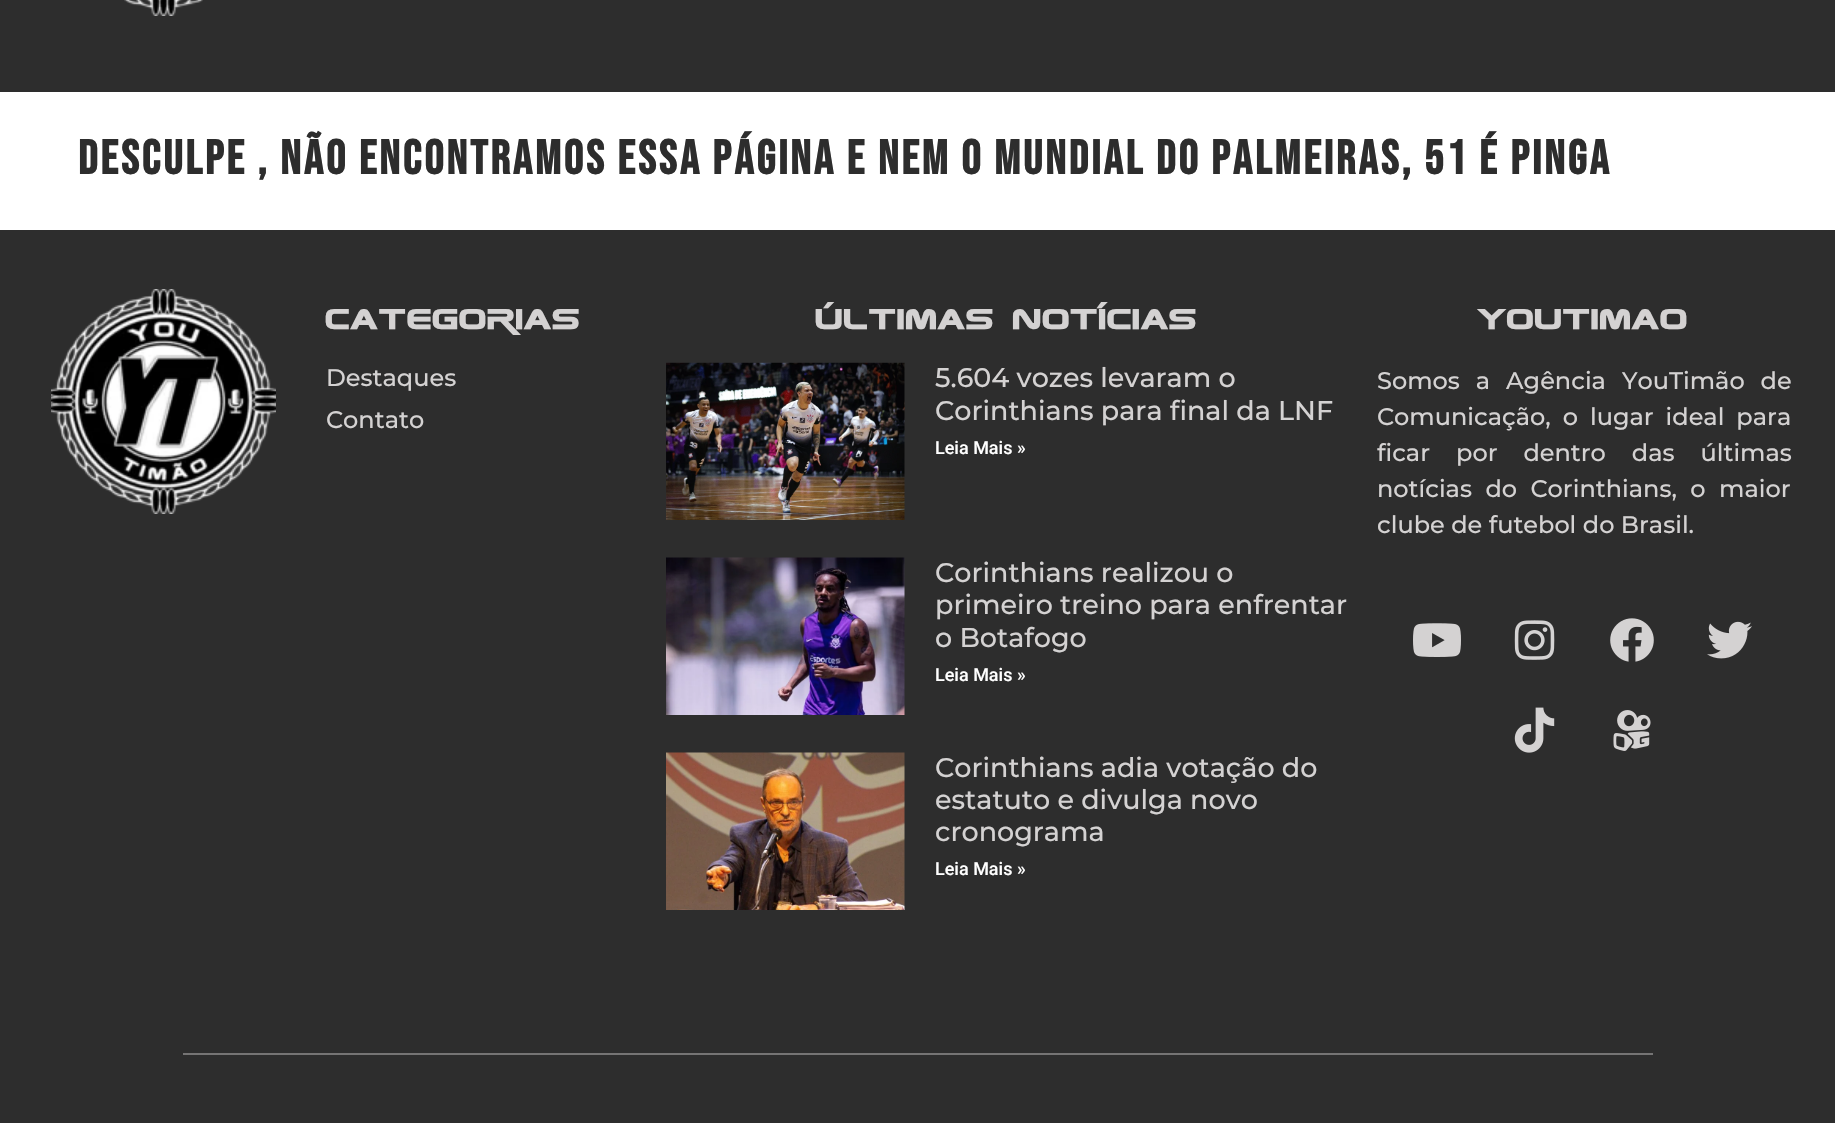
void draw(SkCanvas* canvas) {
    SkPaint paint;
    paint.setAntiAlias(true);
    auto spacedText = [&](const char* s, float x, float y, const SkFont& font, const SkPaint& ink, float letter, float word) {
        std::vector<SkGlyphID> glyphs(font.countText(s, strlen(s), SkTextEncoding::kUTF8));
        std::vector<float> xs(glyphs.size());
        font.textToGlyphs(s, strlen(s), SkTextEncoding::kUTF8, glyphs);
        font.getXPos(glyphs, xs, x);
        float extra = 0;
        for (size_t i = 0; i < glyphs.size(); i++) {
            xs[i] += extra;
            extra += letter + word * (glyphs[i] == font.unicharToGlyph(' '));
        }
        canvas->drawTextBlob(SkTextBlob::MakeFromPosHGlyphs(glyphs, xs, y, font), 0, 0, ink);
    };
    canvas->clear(0xFFFFFFFF);
    paint.setColor(0xFF2D2D2D);
    canvas->drawRect(SkRect::MakeXYWH(0, 0, 1835, 92), paint);
    canvas->drawImageRect(SkImages::DeferredFromEncodedData(SkData::MakeFromFileName("img1.png")), SkRect::MakeXYWH(124, 0, 79, 16), SkSamplingOptions());
    SkFont font1(fontMgr->matchFamilyStyle("Bebas Neue", SkFontStyle::Bold()), 48);
    font1.setSubpixel(true);
    spacedText("DESCULPE , NÃO ENCONTRAMOS ESSA PÁGINA E NEM O MUNDIAL DO PALMEIRAS, 51 É PINGA", 78, 174, font1, paint, 3, 0);
    canvas->drawRect(SkRect::MakeXYWH(0, 230, 1835, 893), paint);
    canvas->drawImageRect(SkImages::DeferredFromEncodedData(SkData::MakeFromFileName("img2.png")), SkRect::MakeXYWH(51, 289, 225, 225), SkSamplingOptions());
    SkFont font2(fontMgr->matchFamilyStyle("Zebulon", SkFontStyle::Bold()), 28.75f);
    font2.setSubpixel(true);
    paint.setColor(0xFFD4D2D2);
    spacedText("Categorias", 326, 329, font2, paint, 1.5f, 0);
    SkFont font3(fontMgr->matchFamilyStyle("Montserrat", SkFontStyle(500, SkFontStyle::kNormal_Width, SkFontStyle::kUpright_Slant)), 24);
    font3.setSubpixel(true);
    canvas->drawString("Destaques", 326, 386, font3, paint);
    canvas->drawString("Contato", 326, 428, font3, paint);
    spacedText("Últimas notícias", 816, 329, font2, paint, 1.5f, 0);
    canvas->drawImageRect(SkImages::DeferredFromEncodedData(SkData::MakeFromFileName("img3.png")), SkRect::MakeXYWH(666, 362, 239, 158), SkSamplingOptions());
    SkFont font4(fontMgr->matchFamilyStyle("Montserrat", SkFontStyle(500, SkFontStyle::kNormal_Width, SkFontStyle::kUpright_Slant)), 27);
    font4.setSubpixel(true);
    canvas->drawString("5.604 vozes levaram o", 935, 387, font4, paint);
    canvas->drawString("Corinthians para final da LNF", 935, 420, font4, paint);
    SkFont font5(fontMgr->matchFamilyStyle("Roboto", SkFontStyle(500, SkFontStyle::kNormal_Width, SkFontStyle::kUpright_Slant)), 18);
    font5.setSubpixel(true);
    paint.setColor(0xFFFFFFFF);
    canvas->drawString("Leia Mais »", 935, 454, font5, paint);
    canvas->drawImageRect(SkImages::DeferredFromEncodedData(SkData::MakeFromFileName("img4.png")), SkRect::MakeXYWH(666, 557, 239, 158), SkSamplingOptions());
    paint.setColor(0xFFD4D2D2);
    canvas->drawString("Corinthians realizou o", 935, 582, font4, paint);
    canvas->drawString("primeiro treino para enfrentar", 935, 614, font4, paint);
    canvas->drawString("o Botafogo", 935, 647, font4, paint);
    paint.setColor(0xFFFFFFFF);
    canvas->drawString("Leia Mais »", 935, 681, font5, paint);
    canvas->drawImageRect(SkImages::DeferredFromEncodedData(SkData::MakeFromFileName("img5.png")), SkRect::MakeXYWH(666, 752, 239, 158), SkSamplingOptions());
    paint.setColor(0xFFD4D2D2);
    canvas->drawString("Corinthians adia votação do", 935, 777, font4, paint);
    canvas->drawString("estatuto e divulga novo", 935, 809, font4, paint);
    canvas->drawString("cronograma", 935, 841, font4, paint);
    paint.setColor(0xFFFFFFFF);
    canvas->drawString("Leia Mais »", 935, 875, font5, paint);
    paint.setColor(0xFFD4D2D2);
    spacedText("YouTimao", 1479, 329, font2, paint, 1.5f, 0);
    spacedText("Somos a Agência YouTimão de", 1377, 389, font3, paint, 0, 9.5f);
    spacedText("Comunicação, o lugar ideal para", 1377, 425, font3, paint, 0, 5.5f);
    spacedText("ficar por dentro das últimas", 1377, 461, font3, paint, 0, 19.5f);
    spacedText("notícias do Corinthians, o maior", 1377, 497, font3, paint, 0, 7);
    canvas->drawString("clube de futebol do Brasil.", 1377, 533, font3, paint);
    canvas->drawImageRect(SkImages::DeferredFromEncodedData(SkData::MakeFromFileName("img6.png")), SkRect::MakeXYWH(1413, 623, 48, 34), SkSamplingOptions());
    canvas->drawImageRect(SkImages::DeferredFromEncodedData(SkData::MakeFromFileName("img7.png")), SkRect::MakeXYWH(1514, 620, 41, 40), SkSamplingOptions());
    canvas->drawImageRect(SkImages::DeferredFromEncodedData(SkData::MakeFromFileName("img8.png")), SkRect::MakeXYWH(1610, 618, 44, 44), SkSamplingOptions());
    canvas->drawImageRect(SkImages::DeferredFromEncodedData(SkData::MakeFromFileName("img9.png")), SkRect::MakeXYWH(1707, 621, 45, 38), SkSamplingOptions());
    canvas->drawImageRect(SkImages::DeferredFromEncodedData(SkData::MakeFromFileName("img10.png")), SkRect::MakeXYWH(1514, 707, 41, 46), SkSamplingOptions());
    canvas->drawImageRect(SkImages::DeferredFromEncodedData(SkData::MakeFromFileName("img11.png")), SkRect::MakeXYWH(1613, 710, 38, 41), SkSamplingOptions());
    paint.setColor(0xFF757474);
    canvas->drawRect(SkRect::MakeXYWH(183, 1053, 1470, 2), paint);
}
